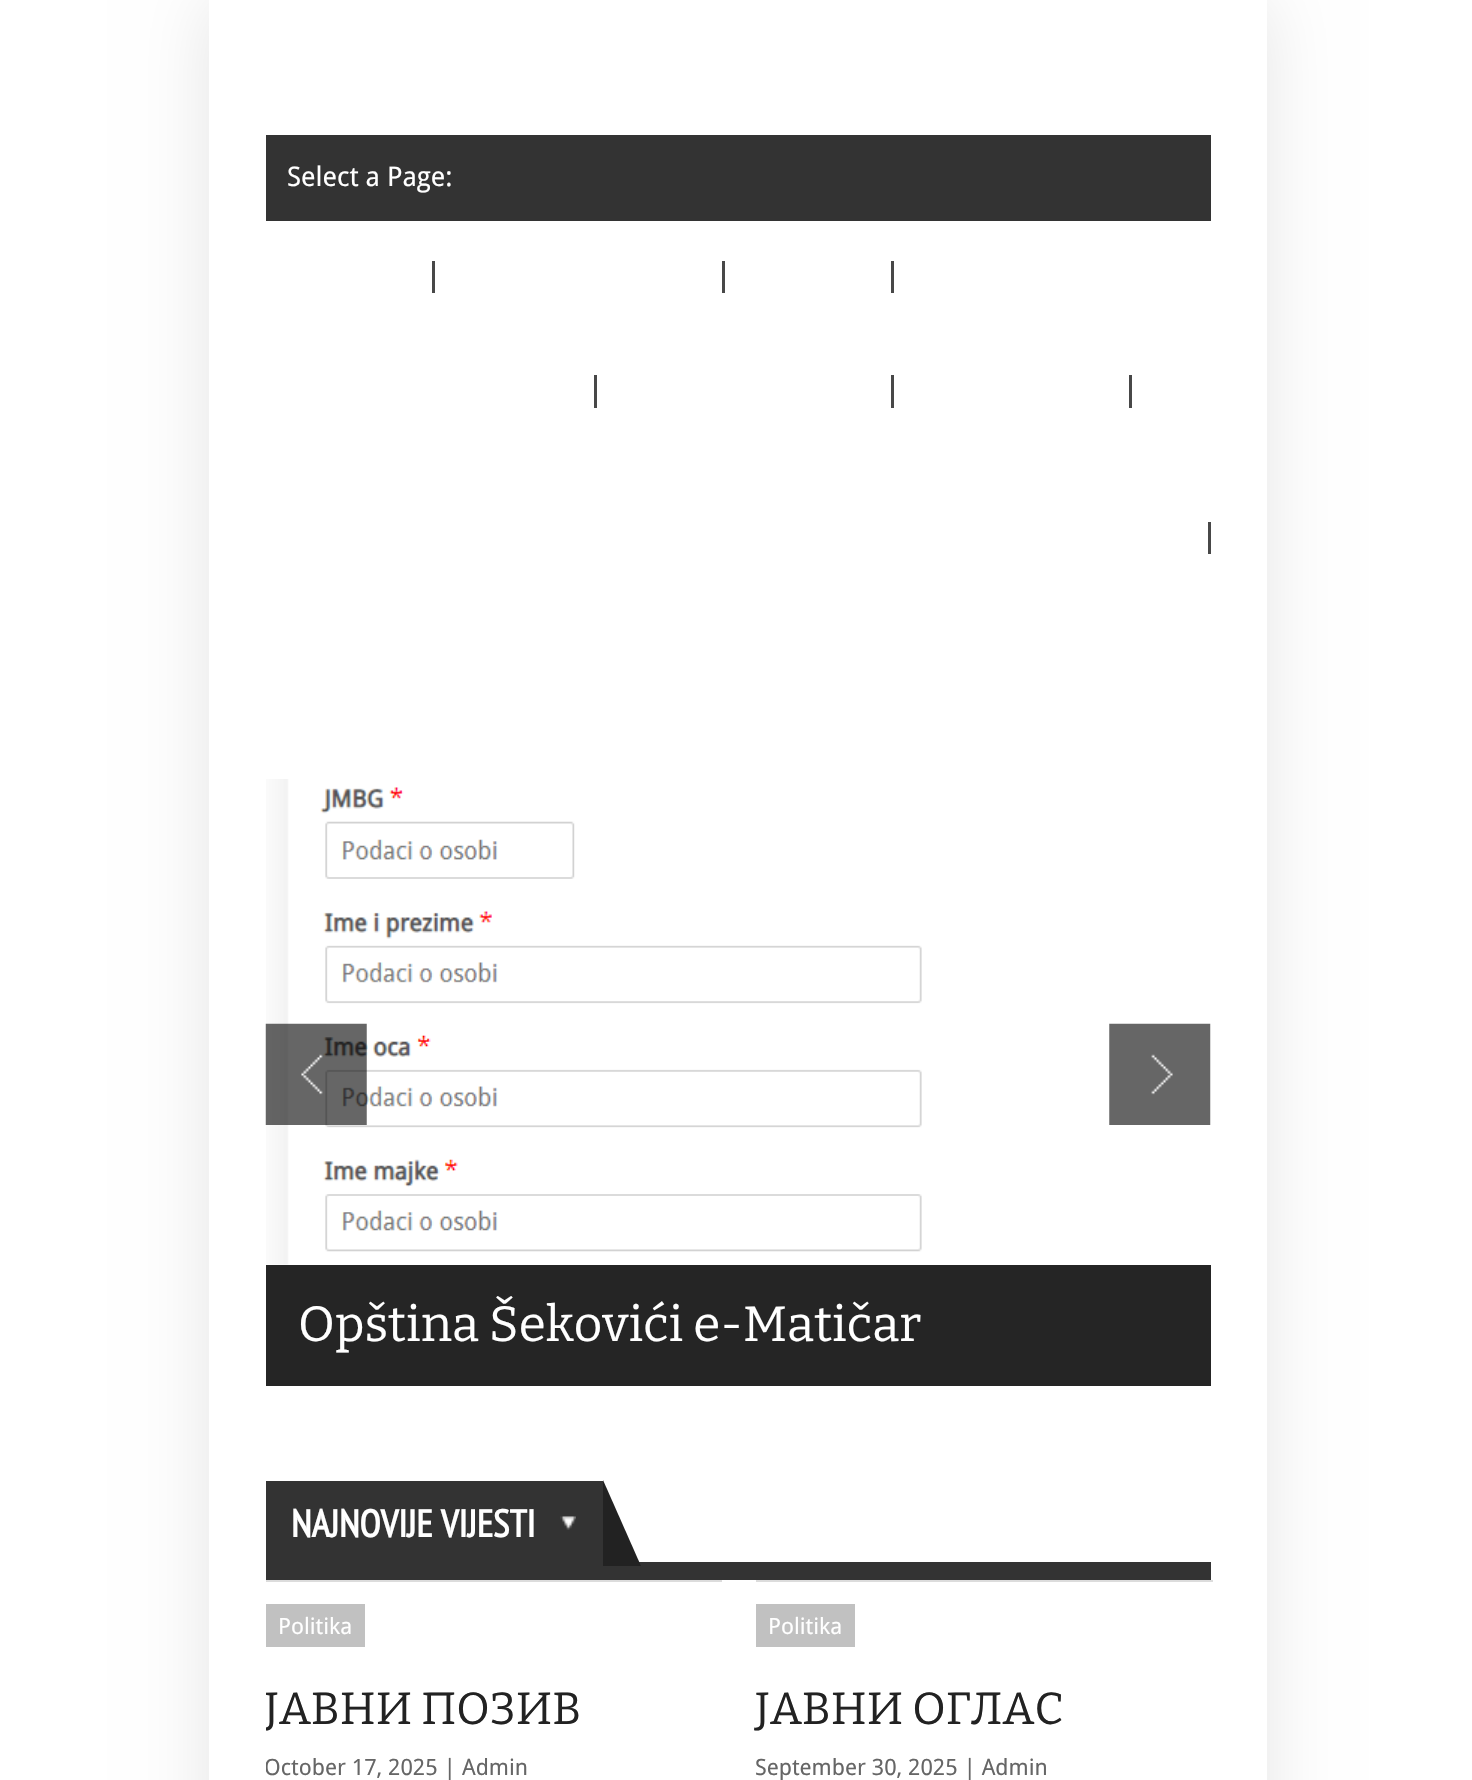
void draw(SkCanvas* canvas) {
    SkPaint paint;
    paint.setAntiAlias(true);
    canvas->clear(0xFFFFFFFF);
    paint.setColor(0x1A000000);
    paint.setMaskFilter(SkMaskFilter::MakeBlur(kNormal_SkBlurStyle, 34));
    canvas->drawRect(SkRect::MakeXYWH(209, 0, 1058, 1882), paint);
    paint.setMaskFilter(nullptr);
    paint.setColor(0xFFFFFFFF);
    canvas->drawRect(SkRect::MakeXYWH(209, 0, 1058, 1780), paint);
    paint.setColor(0xFF333333);
    canvas->drawRect(SkRect::MakeXYWH(266, 135, 945, 86), paint);
    SkFont font1(fontMgr->matchFamilyStyle("Droid Sans", SkFontStyle::Normal()), 27);
    font1.setSubpixel(true);
    paint.setColor(0xFFFFFFFF);
    canvas->drawString("Select a Page:", 287, 186, font1, paint);
    paint.setColor(0xFF484848);
    canvas->drawRect(SkRect::MakeXYWH(432, 261, 3, 32), paint);
    canvas->drawRect(SkRect::MakeXYWH(722, 261, 3, 32), paint);
    canvas->drawRect(SkRect::MakeXYWH(891, 261, 3, 32), paint);
    canvas->drawRect(SkRect::MakeXYWH(594, 375, 3, 33), paint);
    canvas->drawRect(SkRect::MakeXYWH(891, 375, 3, 33), paint);
    canvas->drawRect(SkRect::MakeXYWH(1129, 375, 3, 33), paint);
    canvas->drawRect(SkRect::MakeXYWH(1208, 522, 3, 32), paint);
    canvas->drawImageRect(SkImages::DeferredFromEncodedData(SkData::MakeFromFileName("img1.png")), SkRect::MakeXYWH(266, 779, 656, 486), SkSamplingOptions());
    canvas->drawImageRect(SkImages::DeferredFromEncodedData(SkData::MakeFromFileName("img2.png")), SkRect::MakeXYWH(265, 1023, 102, 102), SkSamplingOptions());
    canvas->drawImageRect(SkImages::DeferredFromEncodedData(SkData::MakeFromFileName("img3.png")), SkRect::MakeXYWH(1109, 1023, 102, 102), SkSamplingOptions());
    paint.setColor(0xFF252525);
    canvas->drawRect(SkRect::MakeXYWH(266, 1265, 945, 121), paint);
    SkFont font2(fontMgr->matchFamilyStyle("Bitter", SkFontStyle(100, SkFontStyle::kNormal_Width, SkFontStyle::kUpright_Slant)), 49.5f);
    font2.setSubpixel(true);
    paint.setColor(0xFFFFFFFF);
    canvas->drawString("Opština Šekovići e-Matičar", 298, 1341, font2, paint);
    paint.setColor(0xFF333333);
    canvas->drawRect(SkRect::MakeXYWH(266, 1481, 337, 99), paint);
    SkFont font3(fontMgr->matchFamilyStyle("PT Sans Narrow", SkFontStyle::Bold()), 38.25f);
    font3.setSubpixel(true);
    paint.setColor(0xFFFFFFFF);
    canvas->drawString("NAJNOVIJE VIJESTI", 291, 1537, font3, paint);
    canvas->drawImageRect(SkImages::DeferredFromEncodedData(SkData::MakeFromFileName("img4.png")), SkRect::MakeXYWH(560, 1516, 16, 14), SkSamplingOptions());
    paint.setColor(0xFF333333);
    canvas->drawRect(SkRect::MakeXYWH(603, 1562, 608, 18), paint);
    paint.setColor(0xFF222222);
    canvas->drawPath(SkPathBuilder().moveTo(603, 1566).lineTo(603, 1480).lineTo(641, 1566).close().detach(), paint);
    paint.setColor(0xFFDCDCDC);
    canvas->drawRect(SkRect::MakeXYWH(266, 1580, 456, 2), paint);
    paint.setColor(0xFFC1C1C1);
    canvas->drawRect(SkRect::MakeXYWH(266, 1604, 99, 43), paint);
    SkFont font4(fontMgr->matchFamilyStyle("Droid Sans", SkFontStyle::Normal()), 22.5f);
    font4.setSubpixel(true);
    paint.setColor(0xFFFFFFFF);
    canvas->drawString("Politika", 278, 1634, font4, paint);
    canvas->save();
    canvas->clipRect(SkRect::MakeXYWH(266, 1580, 981, 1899));
    SkFont font5(fontMgr->matchFamilyStyle("Bitter", SkFontStyle(100, SkFontStyle::kNormal_Width, SkFontStyle::kUpright_Slant)), 45);
    font5.setSubpixel(true);
    paint.setColor(0xFF222222);
    canvas->drawString("ЈАВНИ ПОЗИВ", 264, 1724, font5, paint);
    paint.setColor(0xFF666666);
    canvas->drawString("October 17, 2025 |", 264, 1775, font4, paint);
    canvas->restore();
    canvas->drawString("Admin", 462, 1775, font4, paint);
    paint.setColor(0xFFDCDCDC);
    canvas->drawRect(SkRect::MakeXYWH(756, 1580, 457, 2), paint);
    paint.setColor(0xFFC1C1C1);
    canvas->drawRect(SkRect::MakeXYWH(756, 1604, 99, 43), paint);
    paint.setColor(0xFFFFFFFF);
    canvas->drawString("Politika", 768, 1634, font4, paint);
    paint.setColor(0xFF222222);
    canvas->drawString("ЈАВНИ ОГЛАС", 755, 1724, font5, paint);
    paint.setColor(0xFF666666);
    canvas->drawString("September 30, 2025 | Admin", 755, 1775, font4, paint);
}
